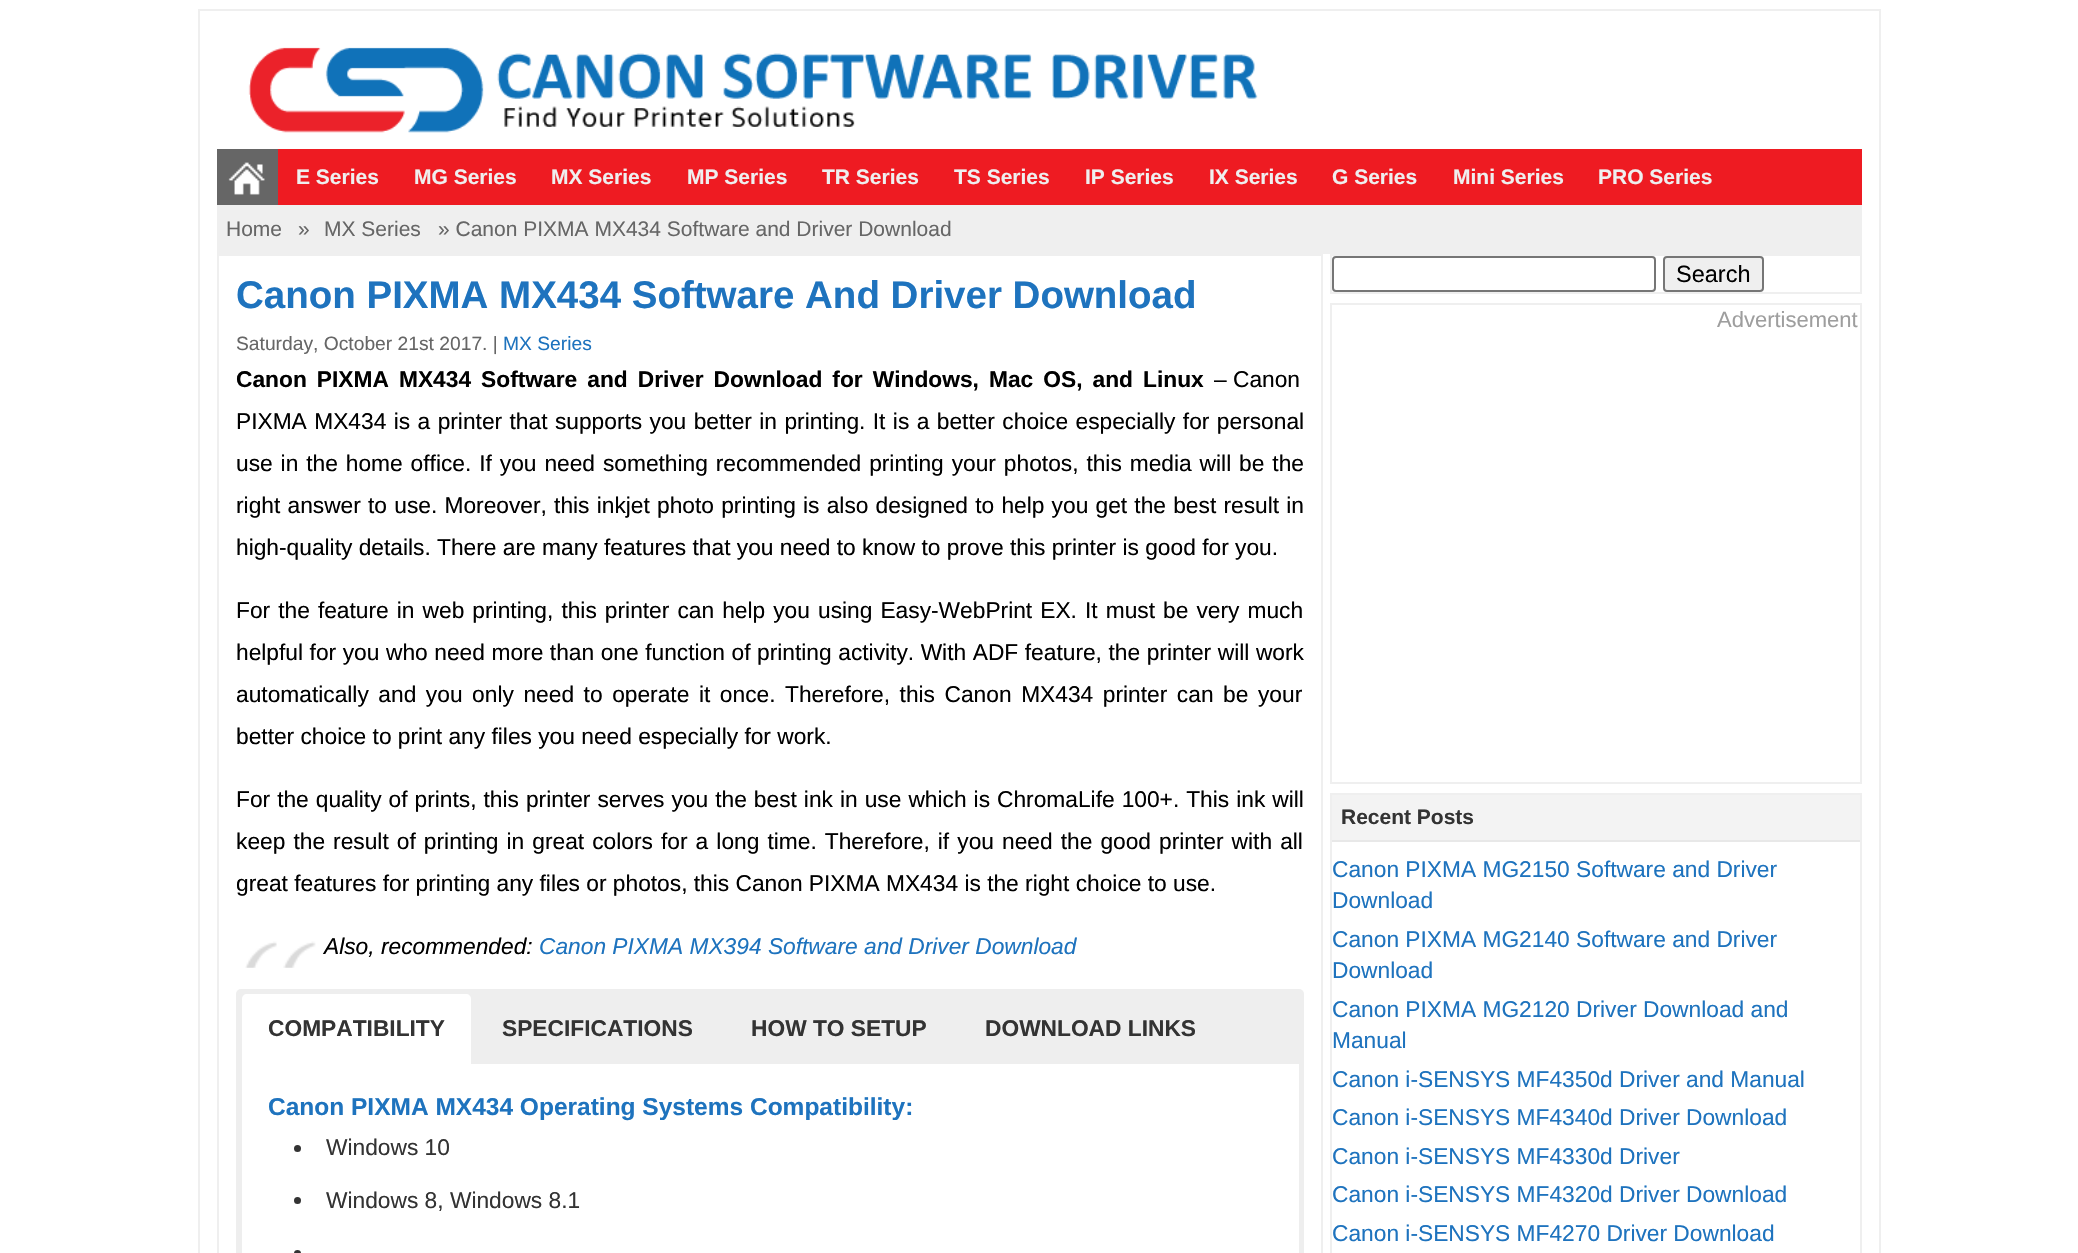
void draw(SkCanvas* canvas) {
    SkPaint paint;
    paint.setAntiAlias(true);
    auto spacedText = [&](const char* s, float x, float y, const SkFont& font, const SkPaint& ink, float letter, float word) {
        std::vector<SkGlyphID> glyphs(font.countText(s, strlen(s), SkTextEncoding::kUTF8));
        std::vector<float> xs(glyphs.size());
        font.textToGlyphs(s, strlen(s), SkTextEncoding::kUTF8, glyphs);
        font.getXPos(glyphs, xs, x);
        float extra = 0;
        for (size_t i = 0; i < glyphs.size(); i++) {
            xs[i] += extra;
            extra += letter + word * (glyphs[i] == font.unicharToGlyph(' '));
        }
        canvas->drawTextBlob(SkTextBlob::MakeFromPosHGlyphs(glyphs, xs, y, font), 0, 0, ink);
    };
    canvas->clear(0xFFFFFFFF);
    paint.setStyle(SkPaint::kStroke_Style);
    paint.setStrokeWidth(2);
    paint.setColor(0xFFEFEFEF);
    canvas->drawRect(SkRect::MakeXYWH(199, 10, 1681, 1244), paint);
    canvas->drawImageRect(SkImages::DeferredFromEncodedData(SkData::MakeFromFileName("img1.png")), SkRect::MakeXYWH(248, 47, 1010, 86), SkSamplingOptions());
    paint.setStyle(SkPaint::kFill_Style);
    paint.setColor(0xFFEE1B22);
    canvas->drawRect(SkRect::MakeXYWH(278, 149, 1584, 56), paint);
    paint.setColor(0xFF666666);
    canvas->drawRect(SkRect::MakeXYWH(217, 149, 61, 56), paint);
    canvas->drawImageRect(SkImages::DeferredFromEncodedData(SkData::MakeFromFileName("img2.png")), SkRect::MakeXYWH(228, 162, 37, 33), SkSamplingOptions());
    SkFont font1(fontMgr->matchFamilyStyle("Liberation Sans", SkFontStyle::Bold()), 21);
    font1.setSubpixel(true);
    paint.setColor(0xFFEFEFEF);
    canvas->drawString("E Series", 296, 184, font1, paint);
    canvas->drawString("MG Series", 414, 184, font1, paint);
    canvas->drawString("MX Series", 551, 184, font1, paint);
    canvas->drawString("MP Series", 687, 184, font1, paint);
    canvas->drawString("TR Series", 822, 184, font1, paint);
    canvas->drawString("TS Series", 954, 184, font1, paint);
    canvas->drawString("IP Series", 1085, 184, font1, paint);
    canvas->drawString("IX Series", 1209, 184, font1, paint);
    canvas->drawString("G Series", 1332, 184, font1, paint);
    canvas->drawString("Mini Series", 1453, 184, font1, paint);
    canvas->drawString("PRO Series", 1598, 184, font1, paint);
    canvas->drawRect(SkRect::MakeXYWH(217, 205, 1645, 49), paint);
    SkFont font2(fontMgr->matchFamilyStyle("Liberation Sans", SkFontStyle::Normal()), 21);
    font2.setSubpixel(true);
    paint.setColor(0xFF666666);
    canvas->drawString("Home", 226, 236, font2, paint);
    canvas->drawString("»", 298, 236, font2, paint);
    canvas->drawString("MX Series", 324, 236, font2, paint);
    canvas->drawString("» Canon PIXMA MX434 Software and Driver Download", 438, 236, font2, paint);
    paint.setStyle(SkPaint::kStroke_Style);
    paint.setColor(0xFFEFEFEF);
    canvas->drawRect(SkRect::MakeXYWH(218, 255, 1104, 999), paint);
    SkFont font3(fontMgr->matchFamilyStyle("Liberation Sans", SkFontStyle::Bold()), 38.5f);
    font3.setSubpixel(true);
    paint.setStyle(SkPaint::kFill_Style);
    paint.setColor(0xFF1E73BE);
    canvas->drawString("Canon PIXMA MX434 Software And Driver Download", 236, 308, font3, paint);
    SkFont font4(fontMgr->matchFamilyStyle("Liberation Sans", SkFontStyle::Normal()), 19.25f);
    font4.setSubpixel(true);
    paint.setColor(0xFF666666);
    canvas->drawString("Saturday, October 21st 2017. |", 236, 350, font4, paint);
    paint.setColor(0xFF1E73BE);
    canvas->drawString("MX Series", 503, 350, font4, paint);
    SkFont font5(fontMgr->matchFamilyStyle("Liberation Sans", SkFontStyle::Bold()), 22.75f);
    font5.setSubpixel(true);
    paint.setColor(0xFF000000);
    spacedText("Canon PIXMA MX434 Software and Driver Download for Windows, Mac OS, and Linux", 236, 387, font5, paint, 0, 3.75f);
    SkFont font6(fontMgr->matchFamilyStyle("Liberation Sans", SkFontStyle::Normal()), 22.75f);
    font6.setSubpixel(true);
    canvas->drawString("– Canon", 1214, 387, font6, paint);
    spacedText("PIXMA MX434 is a printer that supports you better in printing. It is a better choice especially for personal", 236, 429, font6, paint, 0, 1.1f);
    spacedText("use in the home office. If you need something recommended printing your photos, this media will be the", 236, 471, font6, paint, 0, 1.6f);
    spacedText("right answer to use. Moreover, this inkjet photo printing is also designed to help you get the best result in", 236, 513, font6, paint, 0, 0.9f);
    canvas->drawString("high-quality details. There are many features that you need to know to prove this printer is good for you.", 236, 555, font6, paint);
    spacedText("For the feature in web printing, this printer can help you using Easy-WebPrint EX. It must be very much", 236, 618, font6, paint, 0, 1.75f);
    spacedText("helpful for you who need more than one function of printing activity. With ADF feature, the printer will work", 236, 660, font6, paint, 0, 0.25f);
    spacedText("automatically and you only need to operate it once. Therefore, this Canon MX434 printer can be your", 236, 702, font6, paint, 0, 3.25f);
    canvas->drawString("better choice to print any files you need especially for work.", 236, 744, font6, paint);
    spacedText("For the quality of prints, this printer serves you the best ink in use which is ChromaLife 100+. This ink will", 236, 807, font6, paint, 0, 0.7f);
    spacedText("keep the result of printing in great colors for a long time. Therefore, if you need the good printer with all", 236, 849, font6, paint, 0, 1.75f);
    canvas->drawString("great features for printing any files or photos, this Canon PIXMA MX434 is the right choice to use.", 236, 891, font6, paint);
    canvas->drawImageRect(SkImages::DeferredFromEncodedData(SkData::MakeFromFileName("img3.png")), SkRect::MakeXYWH(245, 941, 71, 27), SkSamplingOptions());
    SkFont font7(fontMgr->matchFamilyStyle("Liberation Sans", SkFontStyle::Italic()), 22.75f);
    font7.setSubpixel(true);
    canvas->drawString("Also, recommended:", 324, 954, font7, paint);
    paint.setColor(0xFF1E73BE);
    canvas->drawString("Canon PIXMA MX394 Software and Driver Download", 539, 954, font7, paint);
    paint.setColor(0xFFEEEEEE);
    canvas->drawRoundRect(SkRect::MakeXYWH(236, 989, 1068, 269), 5, 5, paint);
    paint.setColor(0xFFFFFFFF);
    canvas->drawPath(SkPathBuilder().moveTo(247, 994).lineTo(466, 994).cubicTo(469, 994, 471, 996, 471, 999).lineTo(471, 1064).lineTo(242, 1064).lineTo(242, 999).cubicTo(242, 996, 244, 994, 247, 994).close().detach(), paint);
    paint.setColor(0xFF333333);
    canvas->drawString("COMPATIBILITY", 268, 1036, font5, paint);
    canvas->drawString("SPECIFICATIONS", 502, 1036, font5, paint);
    canvas->drawString("HOW TO SETUP", 751, 1036, font5, paint);
    canvas->drawString("DOWNLOAD LINKS", 985, 1036, font5, paint);
    paint.setColor(0xFFFFFFFF);
    canvas->drawRect(SkRect::MakeXYWH(242, 1064, 1057, 189), paint);
    SkFont font8(fontMgr->matchFamilyStyle("Liberation Sans", SkFontStyle::Bold()), 24.5f);
    font8.setSubpixel(true);
    paint.setColor(0xFF1E73BE);
    canvas->drawString("Canon PIXMA MX434 Operating Systems Compatibility:", 268, 1115, font8, paint);
    paint.setColor(0xFF333333);
    canvas->drawCircle(297.5f, 1148.5f, 3.5f, paint);
    canvas->drawString("Windows 10", 326, 1155, font6, paint);
    canvas->drawCircle(297.5f, 1200.5f, 3.5f, paint);
    canvas->drawString("Windows 8, Windows 8.1", 326, 1208, font6, paint);
    canvas->drawCircle(297.5f, 1253.5f, 3.5f, paint);
    paint.setStyle(SkPaint::kStroke_Style);
    paint.setColor(0xFFEFEFEF);
    canvas->drawRect(SkRect::MakeXYWH(1331, 255, 530, 38), paint);
    paint.setColor(0xFF767676);
    canvas->drawRoundRect(SkRect::MakeXYWH(1333, 257, 322, 34), 3, 3, paint);
    paint.setStyle(SkPaint::kFill_Style);
    paint.setColor(0xFFEFEFEF);
    canvas->drawRoundRect(SkRect::MakeXYWH(1664, 257, 99, 34), 3, 3, paint);
    paint.setStyle(SkPaint::kStroke_Style);
    paint.setColor(0xFF767676);
    canvas->drawRoundRect(SkRect::MakeXYWH(1664, 257, 99, 34), 3, 3, paint);
    SkFont font9(fontMgr->matchFamilyStyle("Liberation Sans", SkFontStyle::Normal()), 23.5f);
    font9.setSubpixel(true);
    paint.setStyle(SkPaint::kFill_Style);
    paint.setColor(0xFF000000);
    canvas->drawString("Search", 1676, 282, font9, paint);
    paint.setStyle(SkPaint::kStroke_Style);
    paint.setColor(0xFFEFEFEF);
    canvas->drawRect(SkRect::MakeXYWH(1331, 304, 530, 479), paint);
    SkFont font10(fontMgr->matchFamilyStyle("Liberation Sans", SkFontStyle::Normal()), 22);
    font10.setSubpixel(true);
    paint.setStyle(SkPaint::kFill_Style);
    paint.setColor(0xFF9E9E9E);
    canvas->drawString("Advertisement", 1717, 327, font10, paint);
    paint.setStyle(SkPaint::kStroke_Style);
    paint.setColor(0xFFEFEFEF);
    canvas->drawRect(SkRect::MakeXYWH(1331, 794, 530, 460), paint);
    paint.setStyle(SkPaint::kFill_Style);
    paint.setColor(0xFFF3F3F3);
    canvas->drawRect(SkRect::MakeXYWH(1332, 795, 528, 45), paint);
    paint.setColor(0xFFE8E8E8);
    canvas->drawRect(SkRect::MakeXYWH(1332, 840, 528, 2), paint);
    paint.setColor(0xFF333333);
    canvas->drawString("Recent Posts", 1341, 824, font1, paint);
    paint.setColor(0xFF1E73BE);
    canvas->drawString("Canon PIXMA MG2150 Software and Driver", 1332, 877, font6, paint);
    canvas->drawString("Download", 1332, 908, font6, paint);
    canvas->drawString("Canon PIXMA MG2140 Software and Driver", 1332, 947, font6, paint);
    canvas->drawString("Download", 1332, 978, font6, paint);
    canvas->drawString("Canon PIXMA MG2120 Driver Download and", 1332, 1017, font6, paint);
    canvas->drawString("Manual", 1332, 1048, font6, paint);
    canvas->drawString("Canon i-SENSYS MF4350d Driver and Manual", 1332, 1087, font6, paint);
    canvas->drawString("Canon i-SENSYS MF4340d Driver Download", 1332, 1125, font6, paint);
    canvas->drawString("Canon i-SENSYS MF4330d Driver", 1332, 1164, font6, paint);
    canvas->drawString("Canon i-SENSYS MF4320d Driver Download", 1332, 1202, font6, paint);
    canvas->drawString("Canon i-SENSYS MF4270 Driver Download", 1332, 1241, font6, paint);
}
